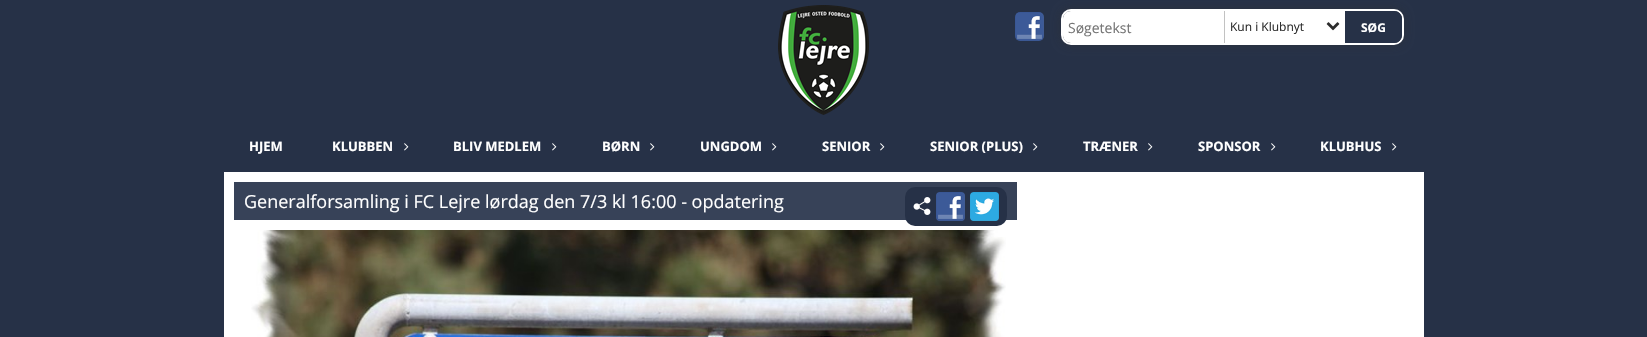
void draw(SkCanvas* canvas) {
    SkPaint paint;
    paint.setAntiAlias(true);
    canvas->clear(0xFF263147);
    canvas->drawImageRect(SkImages::DeferredFromEncodedData(SkData::MakeFromFileName("img1.png")), SkRect::MakeXYWH(778, 5, 91, 110), SkSamplingOptions());
    canvas->drawImageRect(SkImages::DeferredFromEncodedData(SkData::MakeFromFileName("img2.png")), SkRect::MakeXYWH(1015, 12, 29, 29), SkSamplingOptions());
    paint.setColor(0x80303030);
    paint.setMaskFilter(SkMaskFilter::MakeBlur(kNormal_SkBlurStyle, 5));
    canvas->drawRoundRect(SkRect::MakeXYWH(1061, 9, 343, 36), 10, 10, paint);
    paint.setMaskFilter(nullptr);
    paint.setStyle(SkPaint::kStroke_Style);
    paint.setStrokeWidth(2);
    paint.setColor(0xFFFFFFFF);
    canvas->drawRoundRect(SkRect::MakeXYWH(1062, 10, 341, 34), 9, 9, paint);
    paint.setStyle(SkPaint::kFill_Style);
    canvas->drawPath(SkPathBuilder().moveTo(1071, 11).lineTo(1228, 11).lineTo(1228, 43).lineTo(1071, 43).cubicTo(1066.5f, 43, 1063, 39.5f, 1063, 35).lineTo(1063, 19).cubicTo(1063, 14.5f, 1066.5f, 11, 1071, 11).close().detach(), paint);
    SkFont font1(fontMgr->matchFamilyStyle("Open Sans", SkFontStyle::Normal()), 14);
    font1.setSubpixel(true);
    paint.setColor(0xFF757575);
    canvas->drawString("Søgetekst", 1068, 33, font1, paint);
    paint.setColor(0xFFFFFFFF);
    canvas->drawRect(SkRect::MakeXYWH(1228, 11, 117, 32), paint);
    paint.setColor(0xFFC2C2C2);
    canvas->drawRect(SkRect::MakeXYWH(1224, 11, 1, 32), paint);
    SkFont font2(fontMgr->matchFamilyStyle("Open Sans", SkFontStyle::Normal()), 12);
    font2.setSubpixel(true);
    paint.setColor(0xFF2C2C2C);
    canvas->drawString("Kun i Klubnyt", 1230, 31, font2, paint);
    canvas->drawImageRect(SkImages::DeferredFromEncodedData(SkData::MakeFromFileName("img3.png")), SkRect::MakeXYWH(1326, 22, 14, 9), SkSamplingOptions());
    paint.setColor(0xFF263147);
    canvas->drawPath(SkPathBuilder().moveTo(1345, 11).lineTo(1394, 11).cubicTo(1398.5f, 11, 1402, 14.5f, 1402, 19).lineTo(1402, 35).cubicTo(1402, 39.5f, 1398.5f, 43, 1394, 43).lineTo(1345, 43).close().detach(), paint);
    SkFont font3(fontMgr->matchFamilyStyle("Open Sans", SkFontStyle::Bold()), 12);
    font3.setSubpixel(true);
    paint.setColor(0xFFFFFFFF);
    canvas->drawString("SØG", 1361, 32, font3, paint);
    SkFont font4(fontMgr->matchFamilyStyle("Open Sans", SkFontStyle::Bold()), 13);
    font4.setSubpixel(true);
    canvas->drawString("HJEM", 249, 151, font4, paint);
    canvas->drawString("KLUBBEN", 332, 151, font4, paint);
    canvas->drawImageRect(SkImages::DeferredFromEncodedData(SkData::MakeFromFileName("img4.png")), SkRect::MakeXYWH(404, 143, 5, 8), SkSamplingOptions());
    canvas->drawString("BLIV MEDLEM", 453, 151, font4, paint);
    canvas->drawImageRect(SkImages::DeferredFromEncodedData(SkData::MakeFromFileName("img4.png")), SkRect::MakeXYWH(552, 143, 5, 8), SkSamplingOptions());
    canvas->drawString("BØRN", 602, 151, font4, paint);
    canvas->drawImageRect(SkImages::DeferredFromEncodedData(SkData::MakeFromFileName("img4.png")), SkRect::MakeXYWH(650, 143, 5, 8), SkSamplingOptions());
    canvas->drawString("UNGDOM", 700, 151, font4, paint);
    canvas->drawImageRect(SkImages::DeferredFromEncodedData(SkData::MakeFromFileName("img4.png")), SkRect::MakeXYWH(772, 143, 5, 8), SkSamplingOptions());
    canvas->drawString("SENIOR", 822, 151, font4, paint);
    canvas->drawImageRect(SkImages::DeferredFromEncodedData(SkData::MakeFromFileName("img4.png")), SkRect::MakeXYWH(880, 143, 5, 8), SkSamplingOptions());
    canvas->drawString("SENIOR (PLUS)", 930, 151, font4, paint);
    canvas->drawImageRect(SkImages::DeferredFromEncodedData(SkData::MakeFromFileName("img4.png")), SkRect::MakeXYWH(1033, 143, 5, 8), SkSamplingOptions());
    canvas->drawString("TRÆNER", 1083, 151, font4, paint);
    canvas->drawImageRect(SkImages::DeferredFromEncodedData(SkData::MakeFromFileName("img4.png")), SkRect::MakeXYWH(1148, 143, 5, 8), SkSamplingOptions());
    canvas->drawString("SPONSOR", 1198, 151, font4, paint);
    canvas->drawImageRect(SkImages::DeferredFromEncodedData(SkData::MakeFromFileName("img4.png")), SkRect::MakeXYWH(1271, 143, 5, 8), SkSamplingOptions());
    canvas->drawString("KLUBHUS", 1320, 151, font4, paint);
    canvas->drawImageRect(SkImages::DeferredFromEncodedData(SkData::MakeFromFileName("img4.png")), SkRect::MakeXYWH(1392, 143, 5, 8), SkSamplingOptions());
    canvas->drawRect(SkRect::MakeXYWH(224, 172, 1200, 165), paint);
    paint.setColor(0xFF374258);
    canvas->drawRect(SkRect::MakeXYWH(234, 182, 783, 38), paint);
    SkFont font5(fontMgr->matchFamilyStyle("Open Sans", SkFontStyle::Normal()), 18);
    font5.setSubpixel(true);
    paint.setColor(0xFFFFFFFF);
    canvas->drawString("Generalforsamling i FC Lejre lørdag den 7/3 kl 16:00 - opdatering", 244, 208, font5, paint);
    paint.setColor(0xFF263147);
    canvas->drawRoundRect(SkRect::MakeXYWH(905, 187, 102, 39), 10, 10, paint);
    canvas->drawImageRect(SkImages::DeferredFromEncodedData(SkData::MakeFromFileName("img5.png")), SkRect::MakeXYWH(913, 197, 18, 18), SkSamplingOptions());
    canvas->drawImageRect(SkImages::DeferredFromEncodedData(SkData::MakeFromFileName("img6.png")), SkRect::MakeXYWH(936, 192, 29, 29), SkSamplingOptions());
    canvas->drawImageRect(SkImages::DeferredFromEncodedData(SkData::MakeFromFileName("img7.png")), SkRect::MakeXYWH(970, 192, 29, 29), SkSamplingOptions());
    canvas->drawImageRect(SkImages::DeferredFromEncodedData(SkData::MakeFromFileName("img8.png")), SkRect::MakeXYWH(251, 230, 755, 107), SkSamplingOptions());
}
